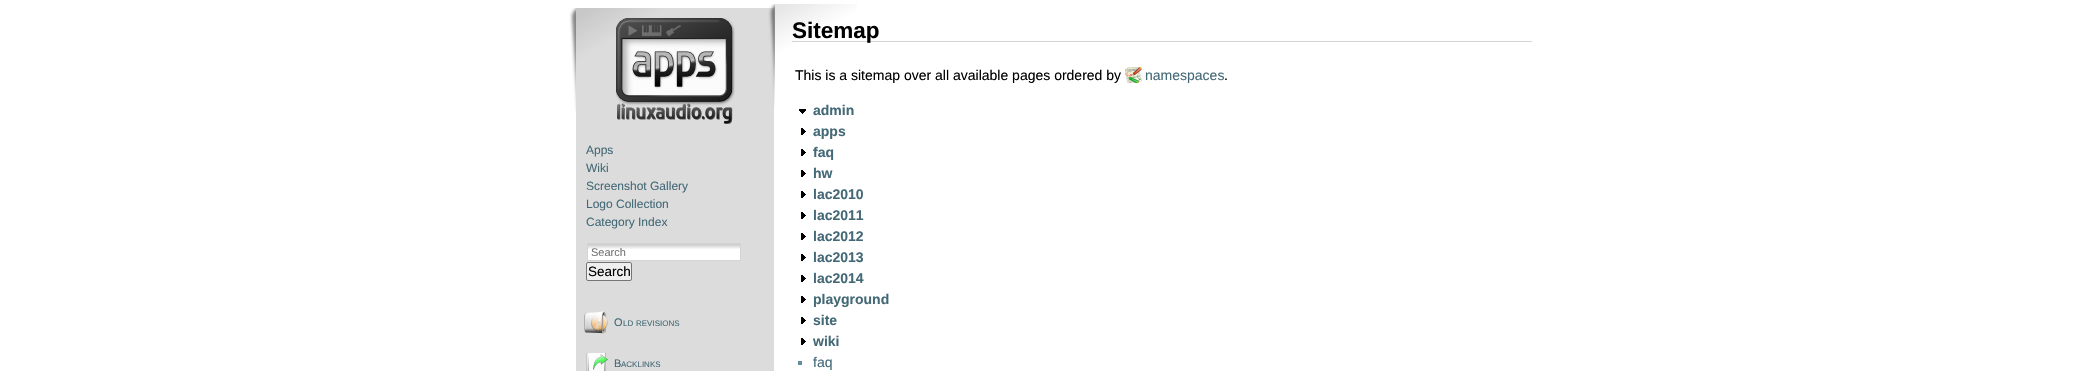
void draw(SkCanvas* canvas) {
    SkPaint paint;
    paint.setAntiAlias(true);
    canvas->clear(0xFFFFFFFF);
    canvas->drawImageRect(SkImages::DeferredFromEncodedData(SkData::MakeFromFileName("img1.png")), SkRect::MakeXYWH(569, 8, 205, 363), SkSamplingOptions());
    canvas->drawImageRect(SkImages::DeferredFromEncodedData(SkData::MakeFromFileName("img2.png")), SkRect::MakeXYWH(616, 18, 119, 106), SkSamplingOptions());
    SkFont font1(fontMgr->matchFamilyStyle("Liberation Sans", SkFontStyle::Normal()), 12);
    font1.setSubpixel(true);
    paint.setColor(0xFF436976);
    canvas->drawString("Apps", 586, 154, font1, paint);
    canvas->drawString("Wiki", 586, 172, font1, paint);
    canvas->drawString("Screenshot Gallery", 586, 190, font1, paint);
    canvas->drawString("Logo Collection", 586, 208, font1, paint);
    canvas->drawString("Category Index", 586, 226, font1, paint);
    paint.setColor(0xFFFFFFFF);
    canvas->drawRect(SkRect::MakeXYWH(588, 244, 152, 16), paint);
    canvas->drawImageRect(SkImages::DeferredFromEncodedData(SkData::MakeFromFileName("img3.png")), SkRect::MakeXYWH(588, 244, 152, 5), SkSamplingOptions());
    paint.setStyle(SkPaint::kStroke_Style);
    paint.setStrokeWidth(1);
    paint.setColor(0xFFD4D4D4);
    canvas->drawRect(SkRect::MakeXYWH(587.5f, 243.5f, 153, 17), paint);
    SkFont font2(fontMgr->matchFamilyStyle("Liberation Sans", SkFontStyle::Normal()), 11);
    font2.setSubpixel(true);
    paint.setStyle(SkPaint::kFill_Style);
    paint.setColor(0xFF757575);
    canvas->drawString("Search", 591, 256, font2, paint);
    paint.setColor(0xFFEFEFEF);
    canvas->drawRoundRect(SkRect::MakeXYWH(586.5f, 262.5f, 45, 18), 1.5f, 1.5f, paint);
    paint.setStyle(SkPaint::kStroke_Style);
    paint.setColor(0xFF767676);
    canvas->drawRoundRect(SkRect::MakeXYWH(586.5f, 262.5f, 45, 18), 1.5f, 1.5f, paint);
    SkFont font3(fontMgr->matchFamilyStyle("Liberation Sans", SkFontStyle::Normal()), 13.5f);
    font3.setSubpixel(true);
    paint.setStyle(SkPaint::kFill_Style);
    paint.setColor(0xFF000000);
    canvas->drawString("Search", 588, 276, font3, paint);
    canvas->drawImageRect(SkImages::DeferredFromEncodedData(SkData::MakeFromFileName("img4.png")), SkRect::MakeXYWH(584, 311, 24, 23), SkSamplingOptions());
    paint.setColor(0xFF436976);
    canvas->drawString("O", 614, 326, font2, paint);
    SkFont font4(fontMgr->matchFamilyStyle("Liberation Sans", SkFontStyle::Normal()), 8);
    font4.setSubpixel(true);
    canvas->drawString("LD", 623, 326, font4, paint);
    canvas->drawString("REVISIONS", 636, 326, font4, paint);
    canvas->drawImageRect(SkImages::DeferredFromEncodedData(SkData::MakeFromFileName("img5.png")), SkRect::MakeXYWH(586, 353, 22, 18), SkSamplingOptions());
    canvas->drawString("B", 614, 367, font2, paint);
    canvas->drawString("ACKLINKS", 621, 367, font4, paint);
    canvas->drawImageRect(SkImages::DeferredFromEncodedData(SkData::MakeFromFileName("img6.png")), SkRect::MakeXYWH(768, 4, 89, 103), SkSamplingOptions());
    paint.setColor(0xFFD4D4D4);
    canvas->drawRect(SkRect::MakeXYWH(792, 41, 740, 1), paint);
    SkFont font5(fontMgr->matchFamilyStyle("Liberation Sans", SkFontStyle::Bold()), 22.5f);
    font5.setSubpixel(true);
    paint.setColor(0xFF000000);
    canvas->drawString("Sitemap", 792, 38, font5, paint);
    SkFont font6(fontMgr->matchFamilyStyle("Liberation Sans", SkFontStyle::Normal()), 14);
    font6.setSubpixel(true);
    canvas->drawString("This is a sitemap over all available pages ordered by", 795, 80, font6, paint);
    canvas->drawImageRect(SkImages::DeferredFromEncodedData(SkData::MakeFromFileName("img7.png")), SkRect::MakeXYWH(1125, 67, 17, 16), SkSamplingOptions());
    paint.setColor(0xFF436976);
    canvas->drawString("namespaces", 1145, 80, font6, paint);
    paint.setColor(0xFF000000);
    canvas->drawString(".", 1224, 80, font6, paint);
    canvas->drawImageRect(SkImages::DeferredFromEncodedData(SkData::MakeFromFileName("img8.png")), SkRect::MakeXYWH(799, 109, 7, 5), SkSamplingOptions());
    SkFont font7(fontMgr->matchFamilyStyle("Liberation Sans", SkFontStyle::Bold()), 14);
    font7.setSubpixel(true);
    paint.setColor(0xFF436976);
    canvas->drawString("admin", 813, 115, font7, paint);
    canvas->drawImageRect(SkImages::DeferredFromEncodedData(SkData::MakeFromFileName("img9.png")), SkRect::MakeXYWH(801, 128, 5, 7), SkSamplingOptions());
    canvas->drawString("apps", 813, 136, font7, paint);
    canvas->drawImageRect(SkImages::DeferredFromEncodedData(SkData::MakeFromFileName("img9.png")), SkRect::MakeXYWH(801, 149, 5, 7), SkSamplingOptions());
    canvas->drawString("faq", 813, 157, font7, paint);
    canvas->drawImageRect(SkImages::DeferredFromEncodedData(SkData::MakeFromFileName("img9.png")), SkRect::MakeXYWH(801, 170, 5, 7), SkSamplingOptions());
    canvas->drawString("hw", 813, 178, font7, paint);
    canvas->drawImageRect(SkImages::DeferredFromEncodedData(SkData::MakeFromFileName("img9.png")), SkRect::MakeXYWH(801, 191, 5, 7), SkSamplingOptions());
    canvas->drawString("lac2010", 813, 199, font7, paint);
    canvas->drawImageRect(SkImages::DeferredFromEncodedData(SkData::MakeFromFileName("img9.png")), SkRect::MakeXYWH(801, 212, 5, 7), SkSamplingOptions());
    canvas->drawString("lac2011", 813, 220, font7, paint);
    canvas->drawImageRect(SkImages::DeferredFromEncodedData(SkData::MakeFromFileName("img9.png")), SkRect::MakeXYWH(801, 233, 5, 7), SkSamplingOptions());
    canvas->drawString("lac2012", 813, 241, font7, paint);
    canvas->drawImageRect(SkImages::DeferredFromEncodedData(SkData::MakeFromFileName("img9.png")), SkRect::MakeXYWH(801, 254, 5, 7), SkSamplingOptions());
    canvas->drawString("lac2013", 813, 262, font7, paint);
    canvas->drawImageRect(SkImages::DeferredFromEncodedData(SkData::MakeFromFileName("img9.png")), SkRect::MakeXYWH(801, 275, 5, 7), SkSamplingOptions());
    canvas->drawString("lac2014", 813, 283, font7, paint);
    canvas->drawImageRect(SkImages::DeferredFromEncodedData(SkData::MakeFromFileName("img9.png")), SkRect::MakeXYWH(801, 296, 5, 7), SkSamplingOptions());
    canvas->drawString("playground", 813, 304, font7, paint);
    canvas->drawImageRect(SkImages::DeferredFromEncodedData(SkData::MakeFromFileName("img9.png")), SkRect::MakeXYWH(801, 317, 5, 7), SkSamplingOptions());
    canvas->drawString("site", 813, 325, font7, paint);
    canvas->drawImageRect(SkImages::DeferredFromEncodedData(SkData::MakeFromFileName("img9.png")), SkRect::MakeXYWH(801, 338, 5, 7), SkSamplingOptions());
    canvas->drawString("wiki", 813, 346, font7, paint);
    paint.setColor(0xFF638C9C);
    canvas->drawRect(SkRect::MakeXYWH(798, 361, 4, 4), paint);
    paint.setColor(0xFF436976);
    canvas->drawString("faq", 813, 367, font6, paint);
}
